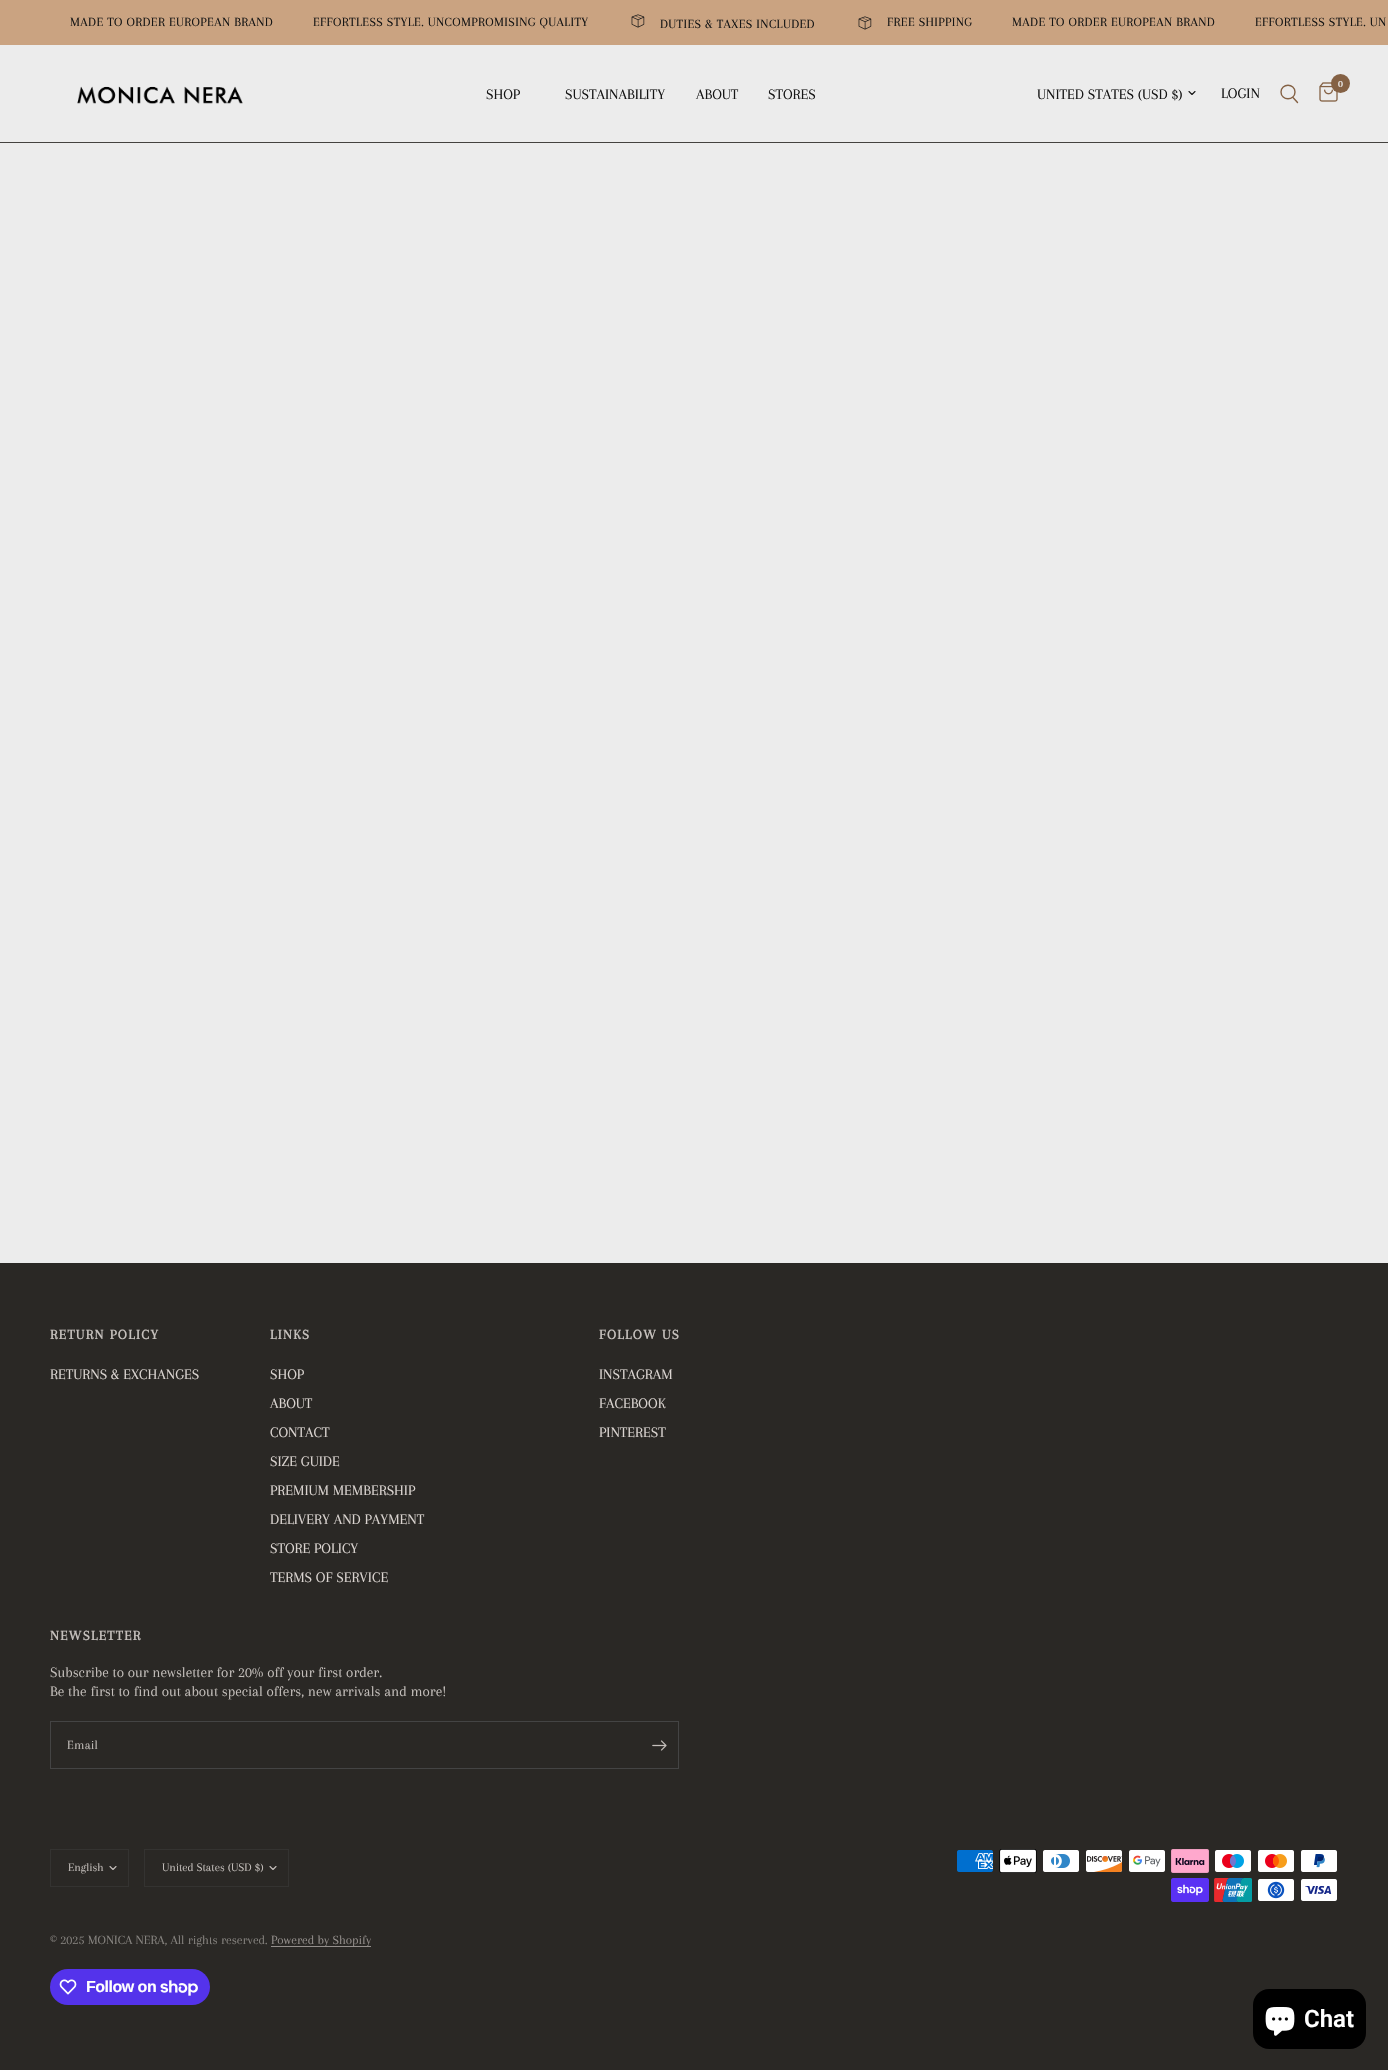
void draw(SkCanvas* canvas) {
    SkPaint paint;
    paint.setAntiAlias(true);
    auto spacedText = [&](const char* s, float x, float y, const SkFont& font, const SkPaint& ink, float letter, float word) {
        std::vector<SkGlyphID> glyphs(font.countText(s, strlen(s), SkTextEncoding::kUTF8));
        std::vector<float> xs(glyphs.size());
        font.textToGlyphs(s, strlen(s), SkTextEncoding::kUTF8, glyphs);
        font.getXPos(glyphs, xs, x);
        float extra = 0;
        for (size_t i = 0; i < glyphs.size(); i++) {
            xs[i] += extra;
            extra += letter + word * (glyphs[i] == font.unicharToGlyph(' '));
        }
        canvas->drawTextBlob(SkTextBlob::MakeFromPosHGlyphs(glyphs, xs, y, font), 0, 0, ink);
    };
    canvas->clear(0xFFECECEC);
    paint.setColor(0xFFCAA381);
    canvas->drawRect(SkRect::MakeXYWH(0, 0, 1388, 45), paint);
    SkFont font1(fontMgr->matchFamilyStyle("Arapey", SkFontStyle::Normal()), 13);
    font1.setSubpixel(true);
    paint.setColor(0xFF151515);
    spacedText("MADE TO ORDER EUROPEAN BRAND", 70, 26, font1, paint, 0.4f, 0);
    spacedText("EFFORTLESS STYLE. UNCOMPROMISING QUALITY", 313, 26, font1, paint, 0.4f, 0);
    canvas->drawImageRect(SkImages::DeferredFromEncodedData(SkData::MakeFromFileName("img1.png")), SkRect::MakeXYWH(631, 14, 14, 14), SkSamplingOptions());
    spacedText("DUTIES & TAXES INCLUDED", 660, 28, font1, paint, 0.4f, 0);
    canvas->drawImageRect(SkImages::DeferredFromEncodedData(SkData::MakeFromFileName("img1.png")), SkRect::MakeXYWH(858, 16, 14, 14), SkSamplingOptions());
    spacedText("FREE SHIPPING", 887, 26, font1, paint, 0.4f, 0);
    spacedText("MADE TO ORDER EUROPEAN BRAND", 1012, 26, font1, paint, 0.4f, 0);
    spacedText("EFFORTLESS STYLE. UN", 1255, 26, font1, paint, 0.4f, 0);
    paint.setColor(0xFF44423F);
    canvas->drawRect(SkRect::MakeXYWH(0, 142, 1388, 1), paint);
    canvas->drawImageRect(SkImages::DeferredFromEncodedData(SkData::MakeFromFileName("img2.png")), SkRect::MakeXYWH(77, 86, 166, 18), SkSamplingOptions());
    SkFont font2(fontMgr->matchFamilyStyle("Arapey", SkFontStyle::Normal()), 15);
    font2.setSubpixel(true);
    paint.setColor(0xFF151515);
    canvas->drawString("SHOP", 486, 99, font2, paint);
    canvas->drawString("SUSTAINABILITY", 565, 99, font2, paint);
    canvas->drawString("ABOUT", 696, 99, font2, paint);
    canvas->drawString("STORES", 768, 99, font2, paint);
    canvas->drawString("UNITED STATES (USD $)", 1037, 99, font2, paint);
    paint.setStyle(SkPaint::kStroke_Style);
    paint.setStrokeWidth(1.1f);
    paint.setStrokeCap(SkPaint::kRound_Cap);
    paint.setStrokeJoin(SkPaint::kRound_Join);
    canvas->drawPath(SkPathBuilder().moveTo(1195, 91.5f).lineTo(1192, 94.5f).lineTo(1189, 91.5f).detach(), paint);
    paint.setStyle(SkPaint::kFill_Style);
    canvas->drawString("LOGIN", 1221, 98, font2, paint);
    paint.setStyle(SkPaint::kStroke_Style);
    paint.setStrokeWidth(1.4f);
    paint.setColor(0xFF846144);
    canvas->drawPath(SkPathBuilder().moveTo(1293, 97.5f).lineTo(1297.5f, 102.5f).moveTo(1295, 92).cubicTo(1295, 101, 1281, 101, 1281, 92).cubicTo(1281, 83, 1295, 83, 1295, 92).close().detach(), paint);
    canvas->drawImageRect(SkImages::DeferredFromEncodedData(SkData::MakeFromFileName("img3.png")), SkRect::MakeXYWH(1319, 82, 19, 20), SkSamplingOptions());
    paint.setStyle(SkPaint::kFill_Style);
    canvas->drawCircle(1340.5f, 83.5f, 9.5f, paint);
    SkFont font3(fontMgr->matchFamilyStyle("Arapey", SkFontStyle::Bold()), 10);
    font3.setSubpixel(true);
    paint.setColor(0xFFECECEC);
    canvas->drawString("0", 1338, 87, font3, paint);
    paint.setColor(0xFF2A2825);
    canvas->drawRect(SkRect::MakeXYWH(0, 1263, 1388, 807), paint);
    SkFont font4(fontMgr->matchFamilyStyle("Arapey", SkFontStyle::Bold()), 14);
    font4.setSubpixel(true);
    paint.setColor(0xFFC4BFBB);
    spacedText("RETURN POLICY", 50, 1339, font4, paint, 1.4f, 0);
    paint.setColor(0xFFDAD4D0);
    canvas->drawString("RETURNS & EXCHANGES", 50, 1379, font2, paint);
    paint.setColor(0xFFC4BFBB);
    spacedText("LINKS", 270, 1339, font4, paint, 1.4f, 0);
    paint.setColor(0xFFDAD4D0);
    canvas->drawString("SHOP", 270, 1379, font2, paint);
    canvas->drawString("ABOUT", 270, 1408, font2, paint);
    canvas->drawString("CONTACT", 270, 1437, font2, paint);
    canvas->drawString("SIZE GUIDE", 270, 1466, font2, paint);
    canvas->drawString("PREMIUM MEMBERSHIP", 270, 1495, font2, paint);
    canvas->drawString("DELIVERY AND PAYMENT", 270, 1524, font2, paint);
    canvas->drawString("STORE POLICY", 270, 1553, font2, paint);
    canvas->save();
    canvas->clipRect(SkRect::MakeXYWH(270, 1362, 299, 227));
    canvas->drawString("TERMS OF SERVICE", 270, 1582, font2, paint);
    canvas->restore();
    paint.setColor(0xFFC4BFBB);
    spacedText("FOLLOW US", 599, 1339, font4, paint, 1.4f, 0);
    paint.setColor(0xFFDAD4D0);
    canvas->drawString("INSTAGRAM", 599, 1379, font2, paint);
    canvas->drawString("FACEBOOK", 599, 1408, font2, paint);
    canvas->drawString("PINTEREST", 599, 1437, font2, paint);
    paint.setColor(0xFFC4BFBB);
    spacedText("NEWSLETTER", 50, 1640, font4, paint, 1.4f, 0);
    canvas->drawString("Subscribe to our newsletter for 20% off your first order.", 50, 1677, font2, paint);
    canvas->drawString("Be the first to find out about special offers, new arrivals and more!", 50, 1696, font2, paint);
    paint.setStyle(SkPaint::kStroke_Style);
    paint.setStrokeWidth(1);
    paint.setStrokeCap(SkPaint::kButt_Cap);
    paint.setStrokeJoin(SkPaint::kMiter_Join);
    paint.setColor(0xFF444444);
    canvas->drawRect(SkRect::MakeXYWH(50.5f, 1721.5f, 628, 47), paint);
    paint.setStyle(SkPaint::kFill_Style);
    paint.setColor(0xFFC4BFBB);
    spacedText("Email", 67, 1749, font1, paint, 0.25f, 0);
    canvas->drawImageRect(SkImages::DeferredFromEncodedData(SkData::MakeFromFileName("img4.png")), SkRect::MakeXYWH(652, 1740, 15, 11), SkSamplingOptions());
    paint.setStyle(SkPaint::kStroke_Style);
    paint.setColor(0xFF343331);
    canvas->drawRect(SkRect::MakeXYWH(50.5f, 1849.5f, 78, 37), paint);
    SkFont font5(fontMgr->matchFamilyStyle("Arapey", SkFontStyle::Normal()), 12);
    font5.setSubpixel(true);
    paint.setStyle(SkPaint::kFill_Style);
    paint.setColor(0xFFC4BFBB);
    canvas->drawString("English", 68, 1871, font5, paint);
    paint.setStyle(SkPaint::kStroke_Style);
    paint.setStrokeWidth(1.1f);
    paint.setStrokeCap(SkPaint::kRound_Cap);
    paint.setStrokeJoin(SkPaint::kRound_Join);
    canvas->drawPath(SkPathBuilder().moveTo(116, 1866.5f).lineTo(113, 1869.5f).lineTo(110, 1866.5f).detach(), paint);
    paint.setStrokeWidth(1);
    paint.setStrokeCap(SkPaint::kButt_Cap);
    paint.setStrokeJoin(SkPaint::kMiter_Join);
    paint.setColor(0xFF343331);
    canvas->drawRect(SkRect::MakeXYWH(144.5f, 1849.5f, 144, 37), paint);
    paint.setStyle(SkPaint::kFill_Style);
    paint.setColor(0xFFC4BFBB);
    canvas->drawString("United States (USD $)", 162, 1871, font5, paint);
    paint.setStyle(SkPaint::kStroke_Style);
    paint.setStrokeWidth(1.1f);
    paint.setStrokeCap(SkPaint::kRound_Cap);
    paint.setStrokeJoin(SkPaint::kRound_Join);
    canvas->drawPath(SkPathBuilder().moveTo(276, 1866.5f).lineTo(273, 1869.5f).lineTo(270, 1866.5f).detach(), paint);
    canvas->drawImageRect(SkImages::DeferredFromEncodedData(SkData::MakeFromFileName("img5.png")), SkRect::MakeXYWH(957, 1850, 36, 22), SkSamplingOptions());
    canvas->drawImageRect(SkImages::DeferredFromEncodedData(SkData::MakeFromFileName("img6.png")), SkRect::MakeXYWH(999, 1849, 38, 24), SkSamplingOptions());
    canvas->drawImageRect(SkImages::DeferredFromEncodedData(SkData::MakeFromFileName("img7.png")), SkRect::MakeXYWH(1043, 1850, 36, 22), SkSamplingOptions());
    canvas->drawImageRect(SkImages::DeferredFromEncodedData(SkData::MakeFromFileName("img8.png")), SkRect::MakeXYWH(1086, 1850, 36, 22), SkSamplingOptions());
    canvas->drawImageRect(SkImages::DeferredFromEncodedData(SkData::MakeFromFileName("img9.png")), SkRect::MakeXYWH(1129, 1850, 36, 22), SkSamplingOptions());
    canvas->drawImageRect(SkImages::DeferredFromEncodedData(SkData::MakeFromFileName("img10.png")), SkRect::MakeXYWH(1171, 1849, 38, 24), SkSamplingOptions());
    canvas->drawImageRect(SkImages::DeferredFromEncodedData(SkData::MakeFromFileName("img11.png")), SkRect::MakeXYWH(1215, 1850, 36, 22), SkSamplingOptions());
    canvas->drawImageRect(SkImages::DeferredFromEncodedData(SkData::MakeFromFileName("img12.png")), SkRect::MakeXYWH(1258, 1850, 36, 22), SkSamplingOptions());
    canvas->drawImageRect(SkImages::DeferredFromEncodedData(SkData::MakeFromFileName("img13.png")), SkRect::MakeXYWH(1301, 1850, 36, 22), SkSamplingOptions());
    canvas->drawImageRect(SkImages::DeferredFromEncodedData(SkData::MakeFromFileName("img14.png")), SkRect::MakeXYWH(1171, 1878, 38, 24), SkSamplingOptions());
    canvas->drawImageRect(SkImages::DeferredFromEncodedData(SkData::MakeFromFileName("img15.png")), SkRect::MakeXYWH(1214, 1878, 38, 24), SkSamplingOptions());
    canvas->drawImageRect(SkImages::DeferredFromEncodedData(SkData::MakeFromFileName("img16.png")), SkRect::MakeXYWH(1258, 1879, 36, 22), SkSamplingOptions());
    canvas->drawImageRect(SkImages::DeferredFromEncodedData(SkData::MakeFromFileName("img17.png")), SkRect::MakeXYWH(1301, 1879, 36, 22), SkSamplingOptions());
    paint.setStyle(SkPaint::kFill_Style);
    paint.setColor(0xFF86837F);
    canvas->drawString("© 2025 MONICA NERA, All rights reserved.", 50, 1944, font1, paint);
    paint.setColor(0xFF948F8C);
    canvas->drawRect(SkRect::MakeXYWH(271, 1946, 100, 1), paint);
    canvas->drawString("Powered by Shopify", 271, 1944, font1, paint);
    paint.setColor(0xFF5433EB);
    canvas->drawRoundRect(SkRect::MakeXYWH(50, 1969, 160, 36), 18, 18, paint);
    canvas->drawImageRect(SkImages::DeferredFromEncodedData(SkData::MakeFromFileName("img18.png")), SkRect::MakeXYWH(59, 1979, 18, 16), SkSamplingOptions());
    SkFont font6(fontMgr->matchFamilyStyle("Liberation Sans", SkFontStyle::Bold()), 16);
    font6.setSubpixel(true);
    paint.setColor(0xFFFFFFFF);
    spacedText("Follow on", 86, 1992, font6, paint, -0.5f, 0);
    canvas->drawImageRect(SkImages::DeferredFromEncodedData(SkData::MakeFromFileName("img19.png")), SkRect::MakeXYWH(160, 1980, 38, 16), SkSamplingOptions());
    paint.setColor(0xFF000000);
    canvas->drawRoundRect(SkRect::MakeXYWH(1253, 1989, 113, 60), 16, 16, paint);
    canvas->drawImageRect(SkImages::DeferredFromEncodedData(SkData::MakeFromFileName("img20.png")), SkRect::MakeXYWH(1265, 2007, 30, 29), SkSamplingOptions());
    SkFont font7(fontMgr->matchFamilyStyle("Roboto", SkFontStyle(600, SkFontStyle::kNormal_Width, SkFontStyle::kUpright_Slant)), 24);
    font7.setSubpixel(true);
    paint.setColor(0xFFFFFFFF);
    canvas->drawString("Chat", 1304, 2027, font7, paint);
}
